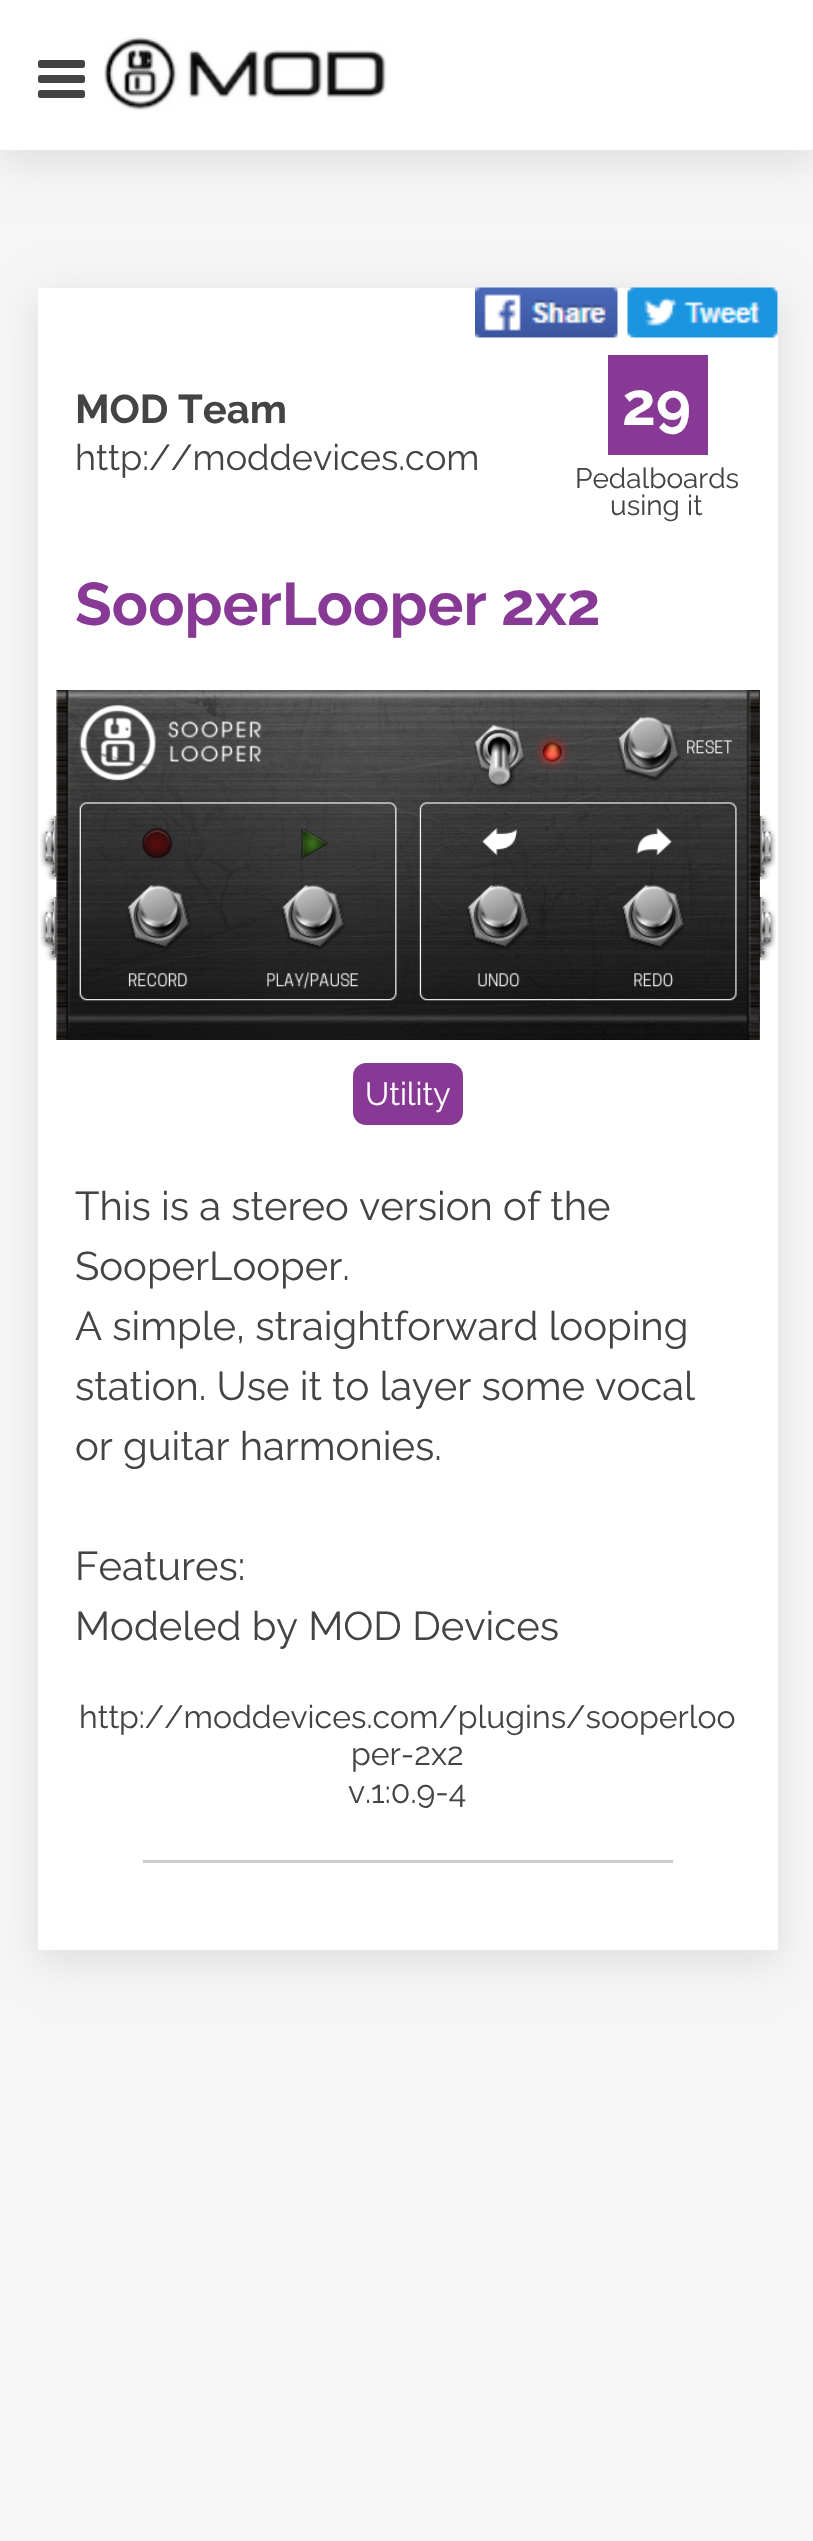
void draw(SkCanvas* canvas) {
    SkPaint paint;
    paint.setAntiAlias(true);
    canvas->clear(0xFFF6F6F6);
    paint.setColor(0x1A000000);
    paint.setMaskFilter(SkMaskFilter::MakeBlur(kNormal_SkBlurStyle, 19));
    canvas->drawRect(SkRect::MakeXYWH(0, 10, 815, 150), paint);
    paint.setMaskFilter(nullptr);
    paint.setColor(0xFFFFFFFF);
    canvas->drawRect(SkRect::MakeXYWH(0, 0, 813, 150), paint);
    paint.setColor(0xFF444444);
    canvas->drawRoundRect(SkRect::MakeXYWH(38, 60, 47, 8), 2.5f, 2.5f, paint);
    canvas->drawRoundRect(SkRect::MakeXYWH(38, 75, 47, 8), 2.5f, 2.5f, paint);
    canvas->drawRoundRect(SkRect::MakeXYWH(38, 90, 47, 8), 2.5f, 2.5f, paint);
    canvas->drawImageRect(SkImages::DeferredFromEncodedData(SkData::MakeFromFileName("img1.png")), SkRect::MakeXYWH(104, 37, 283, 74), SkSamplingOptions());
    paint.setColor(0x1A000000);
    paint.setMaskFilter(SkMaskFilter::MakeBlur(kNormal_SkBlurStyle, 19));
    canvas->drawRect(SkRect::MakeXYWH(38, 298, 740, 1662), paint);
    paint.setMaskFilter(nullptr);
    paint.setColor(0xFFFFFFFF);
    canvas->drawRect(SkRect::MakeXYWH(38, 288, 740, 1662), paint);
    canvas->drawImageRect(SkImages::DeferredFromEncodedData(SkData::MakeFromFileName("img2.png")), SkRect::MakeXYWH(475, 287, 143, 51), SkSamplingOptions());
    canvas->drawImageRect(SkImages::DeferredFromEncodedData(SkData::MakeFromFileName("img3.png")), SkRect::MakeXYWH(627, 287, 151, 51), SkSamplingOptions());
    SkFont font1(fontMgr->matchFamilyStyle("Raleway", SkFontStyle::Bold()), 40);
    font1.setSubpixel(true);
    paint.setColor(0xFF444444);
    canvas->drawString("MOD Team", 75, 423, font1, paint);
    SkFont font2(fontMgr->matchFamilyStyle("Raleway", SkFontStyle::Normal()), 36);
    font2.setSubpixel(true);
    canvas->drawString("http://moddevices.com", 75, 470, font2, paint);
    paint.setColor(0xFF883996);
    canvas->drawRect(SkRect::MakeXYWH(608, 355, 100, 100), paint);
    SkFont font3(fontMgr->matchFamilyStyle("Raleway", SkFontStyle::Bold()), 60);
    font3.setSubpixel(true);
    paint.setColor(0xFFFFFFFF);
    canvas->drawString("29", 622, 425, font3, paint);
    SkFont font4(fontMgr->matchFamilyStyle("Raleway", SkFontStyle::Normal()), 28);
    font4.setSubpixel(true);
    paint.setColor(0xFF444444);
    canvas->drawString("Pedalboards", 575, 488, font4, paint);
    canvas->drawString("using it", 610, 515, font4, paint);
    paint.setColor(0xFF883996);
    canvas->drawString("SooperLooper 2x2", 75, 625, font3, paint);
    canvas->drawImageRect(SkImages::DeferredFromEncodedData(SkData::MakeFromFileName("img4.png")), SkRect::MakeXYWH(40, 690, 736, 350), SkSamplingOptions());
    canvas->drawRoundRect(SkRect::MakeXYWH(353, 1063, 110, 62), 13, 13, paint);
    SkFont font5(fontMgr->matchFamilyStyle("Raleway", SkFontStyle::Normal()), 32);
    font5.setSubpixel(true);
    paint.setColor(0xFFFFFFFF);
    canvas->drawString("Utility", 365, 1105, font5, paint);
    SkFont font6(fontMgr->matchFamilyStyle("Raleway", SkFontStyle::Normal()), 40);
    font6.setSubpixel(true);
    paint.setColor(0xFF444444);
    canvas->drawString("This is a stereo version of the", 75, 1220, font6, paint);
    canvas->drawString("SooperLooper.", 75, 1280, font6, paint);
    canvas->drawString("A simple, straightforward looping", 75, 1340, font6, paint);
    canvas->drawString("station. Use it to layer some vocal", 75, 1400, font6, paint);
    canvas->drawString("or guitar harmonies.", 75, 1460, font6, paint);
    canvas->drawString("Features:", 75, 1580, font6, paint);
    canvas->drawString("Modeled by MOD Devices", 75, 1640, font6, paint);
    canvas->drawString("http://moddevices.com/plugins/sooperloo", 79, 1728, font5, paint);
    canvas->drawString("per-2x2", 351, 1765, font5, paint);
    canvas->drawString("v.1:0.9-4", 348, 1803, font5, paint);
    paint.setColor(0xFFCCCCCC);
    canvas->drawRect(SkRect::MakeXYWH(143, 1860, 530, 3), paint);
}
